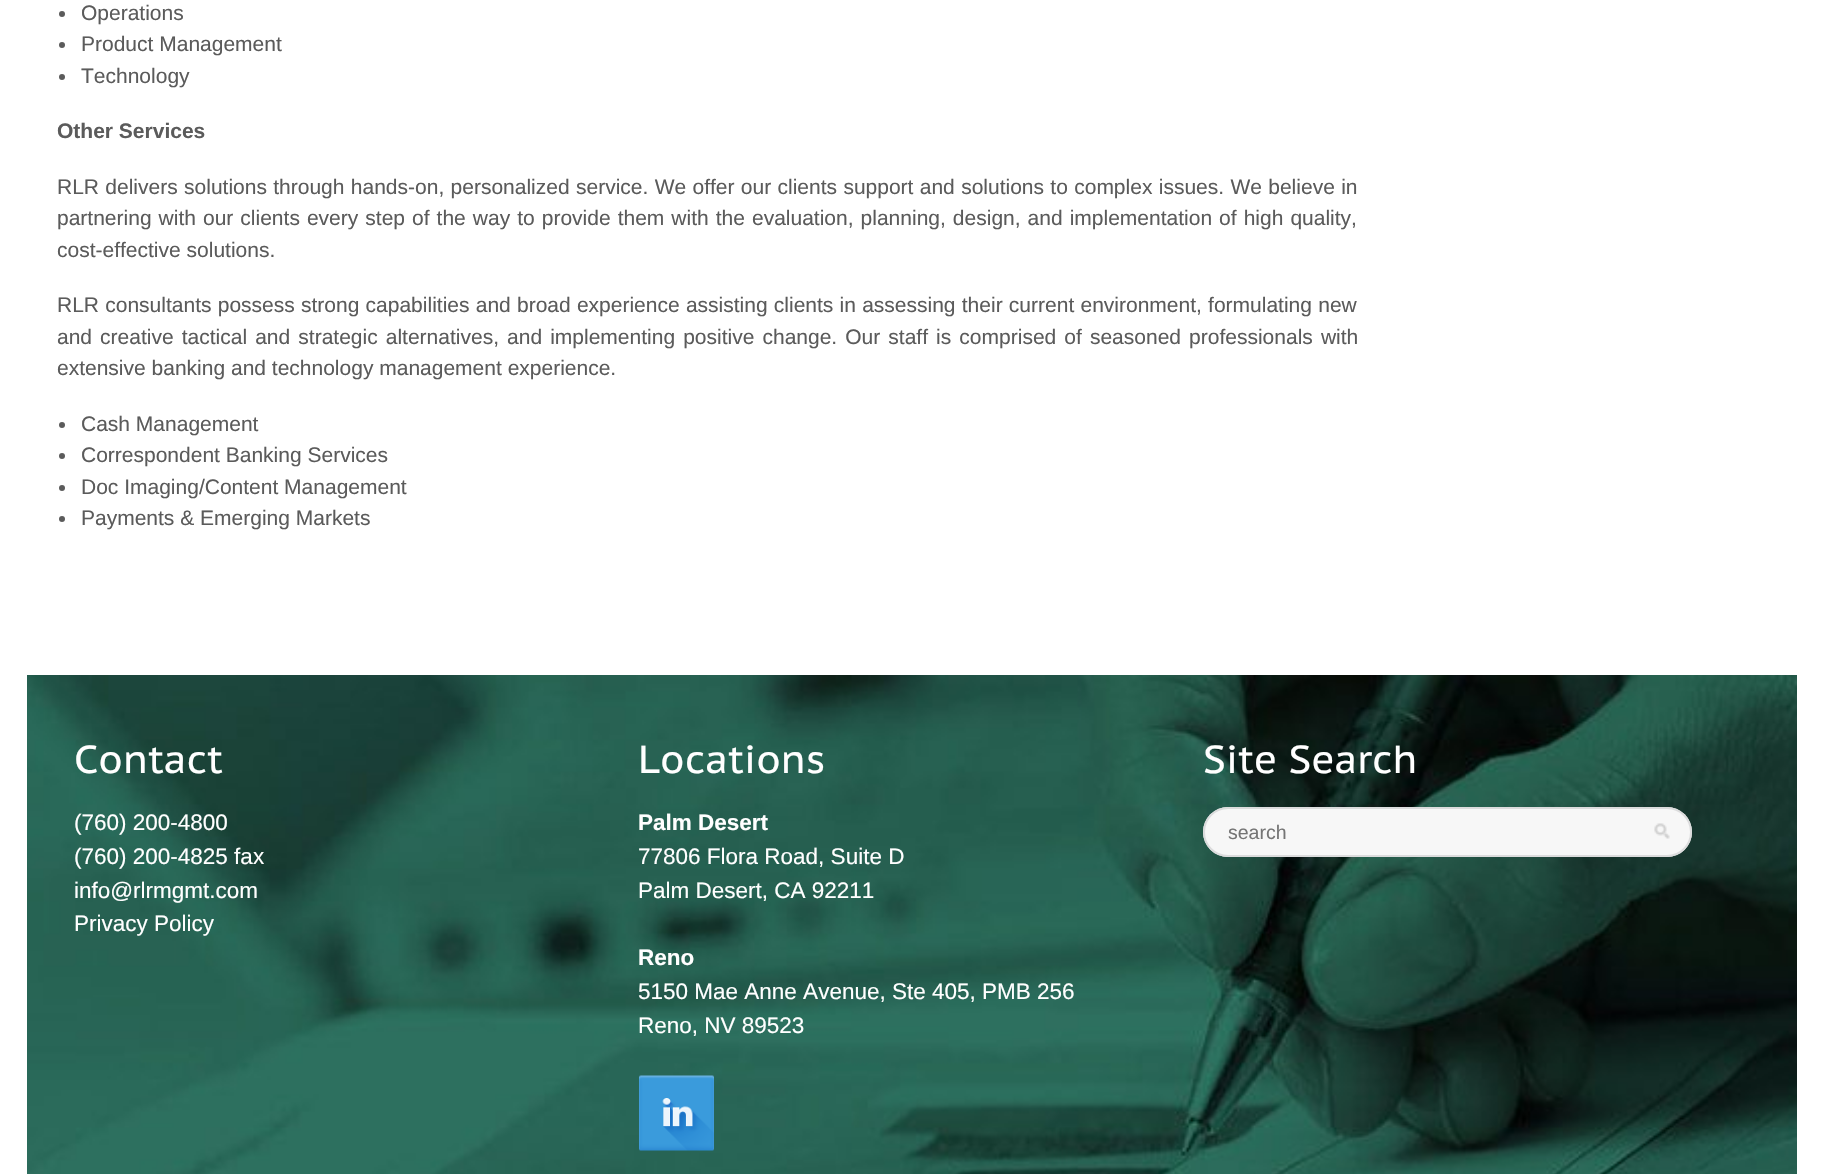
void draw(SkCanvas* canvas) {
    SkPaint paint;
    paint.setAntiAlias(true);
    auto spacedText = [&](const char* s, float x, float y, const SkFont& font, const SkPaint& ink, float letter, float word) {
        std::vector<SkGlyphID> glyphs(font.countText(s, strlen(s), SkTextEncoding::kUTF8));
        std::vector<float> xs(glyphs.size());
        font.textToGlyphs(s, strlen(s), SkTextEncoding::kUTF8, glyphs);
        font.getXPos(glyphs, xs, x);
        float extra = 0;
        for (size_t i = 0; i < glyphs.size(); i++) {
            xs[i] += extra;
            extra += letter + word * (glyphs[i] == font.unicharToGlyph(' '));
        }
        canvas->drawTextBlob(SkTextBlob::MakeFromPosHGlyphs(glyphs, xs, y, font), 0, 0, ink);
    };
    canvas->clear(0xFFFFFFFF);
    paint.setColor(0xFF5B5B5B);
    canvas->drawCircle(62, 14, 3, paint);
    SkFont font1(fontMgr->matchFamilyStyle("Liberation Sans", SkFontStyle::Normal()), 21);
    font1.setSubpixel(true);
    canvas->drawString("Operations", 81, 20, font1, paint);
    canvas->drawCircle(62, 45, 3, paint);
    canvas->drawString("Product Management", 81, 51, font1, paint);
    canvas->drawCircle(62, 77, 3, paint);
    canvas->drawString("Technology", 81, 83, font1, paint);
    SkFont font2(fontMgr->matchFamilyStyle("Liberation Sans", SkFontStyle::Bold()), 21);
    font2.setSubpixel(true);
    canvas->drawString("Other Services", 57, 138, font2, paint);
    spacedText("RLR delivers solutions through hands-on, personalized service. We offer our clients support and solutions to complex issues. We believe in", 57, 194, font1, paint, 0, 0.5f);
    spacedText("partnering with our clients every step of the way to provide them with the evaluation, planning, design, and implementation of high quality,", 57, 225, font1, paint, 0, 1.2f);
    canvas->drawString("cost-effective solutions.", 57, 257, font1, paint);
    spacedText("RLR consultants possess strong capabilities and broad experience assisting clients in assessing their current environment, formulating new", 57, 312, font1, paint, 0, 0.4f);
    spacedText("and creative tactical and strategic alternatives, and implementing positive change. Our staff is comprised of seasoned professionals with", 57, 344, font1, paint, 0, 2.25f);
    canvas->drawString("extensive banking and technology management experience.", 57, 375, font1, paint);
    canvas->drawCircle(62, 425, 3, paint);
    canvas->drawString("Cash Management", 81, 431, font1, paint);
    canvas->drawCircle(62, 456, 3, paint);
    canvas->drawString("Correspondent Banking Services", 81, 462, font1, paint);
    canvas->drawCircle(62, 488, 3, paint);
    canvas->drawString("Doc Imaging/Content Management", 81, 494, font1, paint);
    canvas->drawCircle(62, 519, 3, paint);
    canvas->drawString("Payments & Emerging Markets", 81, 525, font1, paint);
    canvas->drawImageRect(SkImages::DeferredFromEncodedData(SkData::MakeFromFileName("img1.png")), SkRect::MakeXYWH(27, 675, 1770, 499), SkSamplingOptions());
    SkFont font3(fontMgr->matchFamilyStyle("PT Sans Caption", SkFontStyle::Normal()), 39);
    font3.setSubpixel(true);
    paint.setColor(0xFFFFFFFF);
    canvas->drawString("Contact", 74, 773, font3, paint);
    SkFont font4(fontMgr->matchFamilyStyle("Liberation Sans", SkFontStyle::Normal()), 22.5f);
    font4.setSubpixel(true);
    canvas->drawString("(760) 200-4800", 74, 830, font4, paint);
    canvas->drawString("(760) 200-4825 fax", 74, 864, font4, paint);
    canvas->drawString("info@rlrmgmt.com", 74, 898, font4, paint);
    canvas->drawString("Privacy Policy", 74, 931, font4, paint);
    canvas->drawString("Locations", 638, 773, font3, paint);
    SkFont font5(fontMgr->matchFamilyStyle("Liberation Sans", SkFontStyle::Bold()), 22.5f);
    font5.setSubpixel(true);
    canvas->drawString("Palm Desert", 638, 830, font5, paint);
    canvas->drawString("77806 Flora Road, Suite D", 638, 864, font4, paint);
    canvas->drawString("Palm Desert, CA 92211", 638, 898, font4, paint);
    canvas->drawString("Reno", 638, 965, font5, paint);
    canvas->drawString("5150 Mae Anne Avenue, Ste 405, PMB 256", 638, 999, font4, paint);
    canvas->drawString("Reno, NV 89523", 638, 1033, font4, paint);
    canvas->drawImageRect(SkImages::DeferredFromEncodedData(SkData::MakeFromFileName("img2.png")), SkRect::MakeXYWH(639, 1075, 75, 76), SkSamplingOptions());
    canvas->drawString("Site Search", 1203, 773, font3, paint);
    paint.setColor(0xFFF7F7F7);
    canvas->drawRoundRect(SkRect::MakeXYWH(1203, 807, 489, 50), 25, 25, paint);
    canvas->drawImageRect(SkImages::DeferredFromEncodedData(SkData::MakeFromFileName("img3.png")), SkRect::MakeXYWH(1654, 823, 16, 16), SkSamplingOptions());
    paint.setStyle(SkPaint::kStroke_Style);
    paint.setStrokeWidth(2);
    paint.setColor(0xFFDCDCDD);
    canvas->drawRoundRect(SkRect::MakeXYWH(1204, 808, 487, 48), 24, 24, paint);
    SkFont font6(fontMgr->matchFamilyStyle("Liberation Sans", SkFontStyle::Normal()), 19.5f);
    font6.setSubpixel(true);
    paint.setStyle(SkPaint::kFill_Style);
    paint.setColor(0xFF757575);
    canvas->drawString("search", 1228, 839, font6, paint);
}
